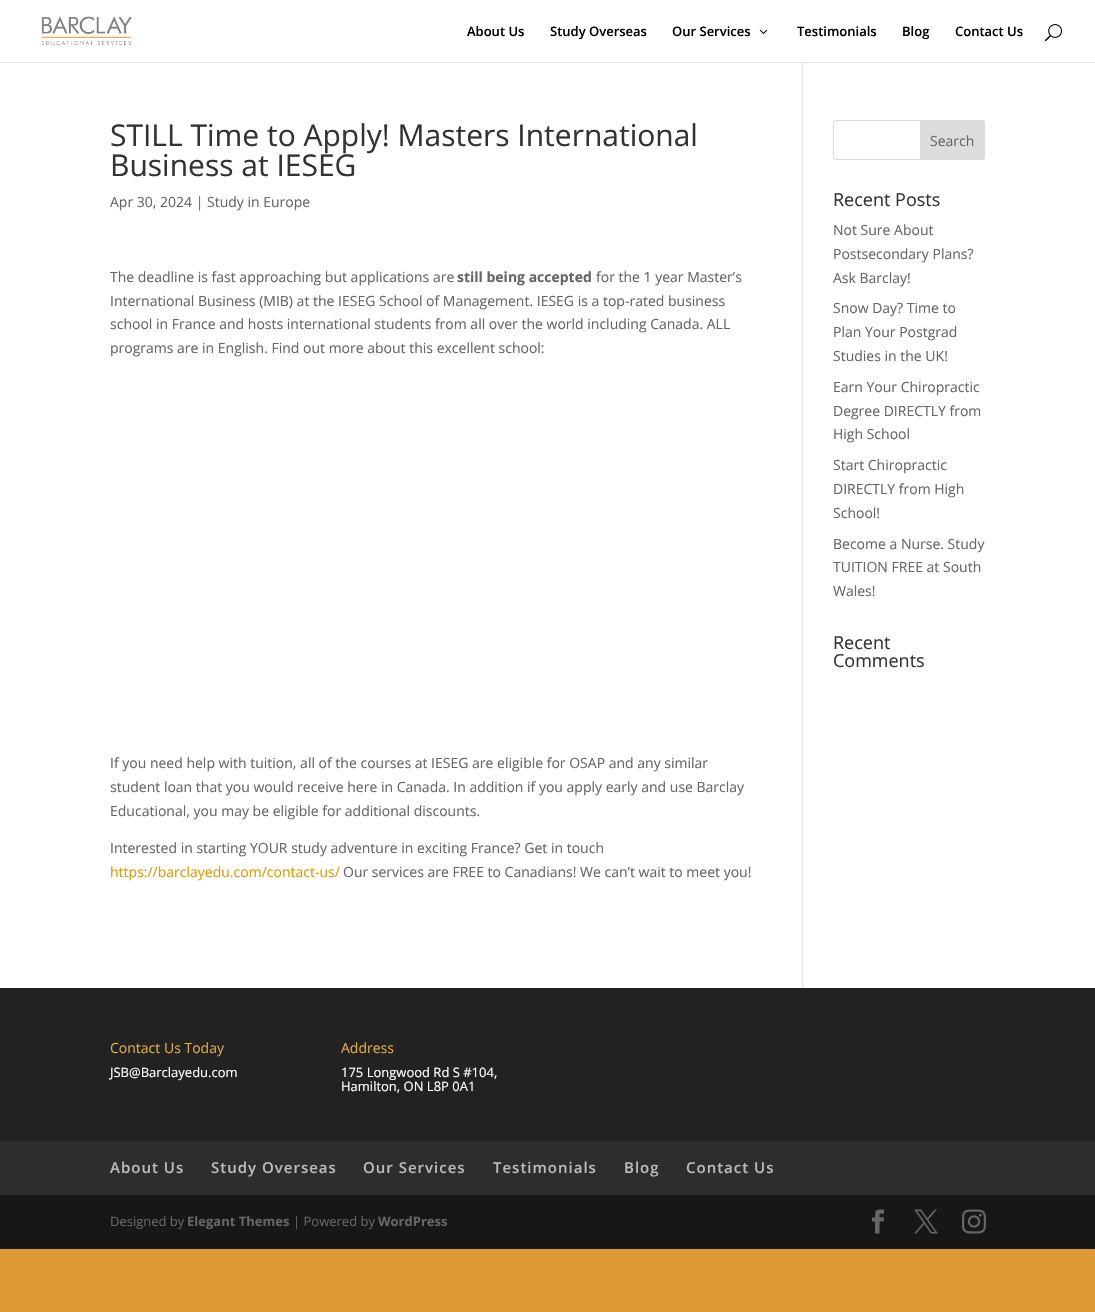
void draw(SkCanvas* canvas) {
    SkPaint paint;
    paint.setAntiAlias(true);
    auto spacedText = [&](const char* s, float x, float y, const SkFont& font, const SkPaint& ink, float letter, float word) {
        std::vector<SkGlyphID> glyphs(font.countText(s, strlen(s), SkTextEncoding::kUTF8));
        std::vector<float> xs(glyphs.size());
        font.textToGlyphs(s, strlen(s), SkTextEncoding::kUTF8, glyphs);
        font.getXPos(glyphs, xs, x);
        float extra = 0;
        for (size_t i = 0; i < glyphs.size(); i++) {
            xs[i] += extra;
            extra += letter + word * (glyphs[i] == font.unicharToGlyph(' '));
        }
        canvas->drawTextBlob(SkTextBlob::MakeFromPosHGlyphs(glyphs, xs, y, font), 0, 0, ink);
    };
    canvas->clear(0xFFDD9933);
    paint.setColor(0xFFFFFFFF);
    canvas->drawRect(SkRect::MakeXYWH(0, 0, 1095, 62), paint);
    canvas->drawImageRect(SkImages::DeferredFromEncodedData(SkData::MakeFromFileName("img1.png")), SkRect::MakeXYWH(41, 16, 91, 29), SkSamplingOptions());
    SkFont font1(fontMgr->matchFamilyStyle("Open Sans", SkFontStyle(600, SkFontStyle::kNormal_Width, SkFontStyle::kUpright_Slant)), 13);
    font1.setSubpixel(true);
    paint.setColor(0xFF000000);
    canvas->drawString("About Us", 467, 36, font1, paint);
    canvas->drawString("Study Overseas", 550, 36, font1, paint);
    canvas->drawString("Our Services", 672, 36, font1, paint);
    canvas->drawImageRect(SkImages::DeferredFromEncodedData(SkData::MakeFromFileName("img2.png")), SkRect::MakeXYWH(759, 29, 9, 5), SkSamplingOptions());
    canvas->drawString("Testimonials", 797, 36, font1, paint);
    canvas->drawString("Blog", 902, 36, font1, paint);
    canvas->drawString("Contact Us", 955, 36, font1, paint);
    canvas->drawImageRect(SkImages::DeferredFromEncodedData(SkData::MakeFromFileName("img3.png")), SkRect::MakeXYWH(1045, 24, 17, 18), SkSamplingOptions());
    paint.setColor(0xFFFFFFFF);
    canvas->drawRect(SkRect::MakeXYWH(0, 63, 1095, 925), paint);
    paint.setColor(0xFFE6E6E6);
    canvas->drawRect(SkRect::MakeXYWH(0, 62, 1095, 1), paint);
    paint.setColor(0xFFE2E2E2);
    canvas->drawRect(SkRect::MakeXYWH(802, 62, 1, 926), paint);
    paint.setColor(0xFFCBCBCB);
    canvas->drawRect(SkRect::MakeXYWH(802, 62, 1, 1), paint);
    SkFont font2(fontMgr->matchFamilyStyle("Open Sans", SkFontStyle::Normal()), 30);
    font2.setSubpixel(true);
    paint.setColor(0xFF333333);
    canvas->drawString("STILL Time to Apply! Masters International", 110, 146, font2, paint);
    canvas->drawString("Business at IESEG", 110, 176, font2, paint);
    SkFont font3(fontMgr->matchFamilyStyle("Open Sans", SkFontStyle::Normal()), 14);
    font3.setSubpixel(true);
    paint.setColor(0xFF666666);
    canvas->drawString("Apr 30, 2024 | Study in Europe", 110, 207, font3, paint);
    canvas->drawString("The deadline is fast approaching but applications are", 110, 282, font3, paint);
    SkFont font4(fontMgr->matchFamilyStyle("Open Sans", SkFontStyle::Bold()), 14);
    font4.setSubpixel(true);
    canvas->drawString("still being accepted", 457, 282, font4, paint);
    canvas->drawString("for the 1 year Master’s", 596, 282, font3, paint);
    canvas->drawString("International Business (MIB) at the IESEG School of Management. IESEG is a top-rated business", 110, 306, font3, paint);
    canvas->drawString("school in France and hosts international students from all over the world including Canada. ALL", 110, 329, font3, paint);
    canvas->drawString("programs are in English. Find out more about this excellent school:", 110, 353, font3, paint);
    canvas->drawString("If you need help with tuition, all of the courses at IESEG are eligible for OSAP and any similar", 110, 768, font3, paint);
    canvas->drawString("student loan that you would receive here in Canada. In addition if you apply early and use Barclay", 110, 792, font3, paint);
    canvas->drawString("Educational, you may be eligible for additional discounts.", 110, 816, font3, paint);
    canvas->drawString("Interested in starting YOUR study adventure in exciting France? Get in touch", 110, 853, font3, paint);
    paint.setColor(0xFFE09900);
    canvas->drawString("https://barclayedu.com/contact-us/", 110, 877, font3, paint);
    paint.setColor(0xFF666666);
    canvas->drawString("Our services are FREE to Canadians! We can’t wait to meet you!", 343, 877, font3, paint);
    paint.setStyle(SkPaint::kStroke_Style);
    paint.setStrokeWidth(1);
    paint.setColor(0xFFDDDDDD);
    canvas->drawRoundRect(SkRect::MakeXYWH(833.5f, 120.5f, 151, 39), 2.5f, 2.5f, paint);
    paint.setStyle(SkPaint::kFill_Style);
    canvas->drawPath(SkPathBuilder().moveTo(920.5f, 120.5f).lineTo(982, 120.5f).cubicTo(983.5f, 120.5f, 984.5f, 121.5f, 984.5f, 123).lineTo(984.5f, 157).cubicTo(984.5f, 158.5f, 983.5f, 159.5f, 982, 159.5f).lineTo(920.5f, 159.5f).close().detach(), paint);
    paint.setStyle(SkPaint::kStroke_Style);
    canvas->drawPath(SkPathBuilder().moveTo(920.5f, 120.5f).lineTo(982, 120.5f).cubicTo(983.5f, 120.5f, 984.5f, 121.5f, 984.5f, 123).lineTo(984.5f, 157).cubicTo(984.5f, 158.5f, 983.5f, 159.5f, 982, 159.5f).lineTo(920.5f, 159.5f).close().detach(), paint);
    paint.setStyle(SkPaint::kFill_Style);
    paint.setColor(0xFF666666);
    canvas->drawString("Search", 930, 146, font3, paint);
    SkFont font5(fontMgr->matchFamilyStyle("Open Sans", SkFontStyle::Normal()), 18);
    font5.setSubpixel(true);
    paint.setColor(0xFF333333);
    canvas->drawString("Recent Posts", 833, 206, font5, paint);
    paint.setColor(0xFF666666);
    canvas->drawString("Not Sure About", 833, 235, font3, paint);
    canvas->drawString("Postsecondary Plans?", 833, 259, font3, paint);
    canvas->drawString("Ask Barclay!", 833, 283, font3, paint);
    canvas->drawString("Snow Day? Time to", 833, 313, font3, paint);
    canvas->drawString("Plan Your Postgrad", 833, 337, font3, paint);
    canvas->drawString("Studies in the UK!", 833, 361, font3, paint);
    canvas->drawString("Earn Your Chiropractic", 833, 392, font3, paint);
    canvas->drawString("Degree DIRECTLY from", 833, 416, font3, paint);
    canvas->drawString("High School", 833, 439, font3, paint);
    canvas->drawString("Start Chiropractic", 833, 470, font3, paint);
    canvas->drawString("DIRECTLY from High", 833, 494, font3, paint);
    canvas->drawString("School!", 833, 518, font3, paint);
    canvas->drawString("Become a Nurse. Study", 833, 549, font3, paint);
    canvas->drawString("TUITION FREE at South", 833, 572, font3, paint);
    canvas->drawString("Wales!", 833, 596, font3, paint);
    paint.setColor(0xFF333333);
    canvas->drawString("Recent", 833, 649, font5, paint);
    canvas->drawString("Comments", 833, 667, font5, paint);
    paint.setColor(0xFF222222);
    canvas->drawRect(SkRect::MakeXYWH(0, 988, 1095, 153), paint);
    paint.setColor(0xFFE0AD3E);
    canvas->drawString("Contact Us Today", 110, 1053, font3, paint);
    SkFont font6(fontMgr->matchFamilyStyle("Open Sans", SkFontStyle::Normal()), 13);
    font6.setSubpixel(true);
    paint.setColor(0xFFFFFFFF);
    canvas->drawString("JSB@Barclayedu.com", 110, 1077, font6, paint);
    paint.setColor(0xFFE0AD3E);
    canvas->drawString("Address", 341, 1053, font3, paint);
    paint.setColor(0xFFFFFFFF);
    canvas->drawString("175 Longwood Rd S #104,", 341, 1077, font6, paint);
    canvas->drawString("Hamilton, ON L8P 0A1", 341, 1091, font6, paint);
    paint.setColor(0xFF2D2D2D);
    canvas->drawRect(SkRect::MakeXYWH(0, 1141, 1095, 54), paint);
    SkFont font7(fontMgr->matchFamilyStyle("Open Sans", SkFontStyle(600, SkFontStyle::kNormal_Width, SkFontStyle::kUpright_Slant)), 15);
    font7.setSubpixel(true);
    paint.setColor(0xFFBBBBBB);
    spacedText("About Us", 110, 1173, font7, paint, 1, 0);
    spacedText("Study Overseas", 211, 1173, font7, paint, 1, 0);
    spacedText("Our Services", 363, 1173, font7, paint, 1, 0);
    spacedText("Testimonials", 493, 1173, font7, paint, 1, 0);
    spacedText("Blog", 624, 1173, font7, paint, 1, 0);
    spacedText("Contact Us", 686, 1173, font7, paint, 1, 0);
    paint.setColor(0xFF171717);
    canvas->drawRect(SkRect::MakeXYWH(0, 1195, 1095, 54), paint);
    paint.setColor(0xFF666666);
    canvas->drawString("Designed by", 110, 1226, font6, paint);
    SkFont font8(fontMgr->matchFamilyStyle("Open Sans", SkFontStyle::Bold()), 13);
    font8.setSubpixel(true);
    canvas->drawString("Elegant Themes", 187, 1226, font8, paint);
    canvas->drawString("| Powered by", 293, 1226, font6, paint);
    canvas->drawString("WordPress", 378, 1226, font8, paint);
    canvas->drawImageRect(SkImages::DeferredFromEncodedData(SkData::MakeFromFileName("img4.png")), SkRect::MakeXYWH(872, 1209, 12, 25), SkSamplingOptions());
    canvas->drawImageRect(SkImages::DeferredFromEncodedData(SkData::MakeFromFileName("img5.png")), SkRect::MakeXYWH(914, 1209, 24, 25), SkSamplingOptions());
    canvas->drawImageRect(SkImages::DeferredFromEncodedData(SkData::MakeFromFileName("img6.png")), SkRect::MakeXYWH(962, 1209, 24, 25), SkSamplingOptions());
}
